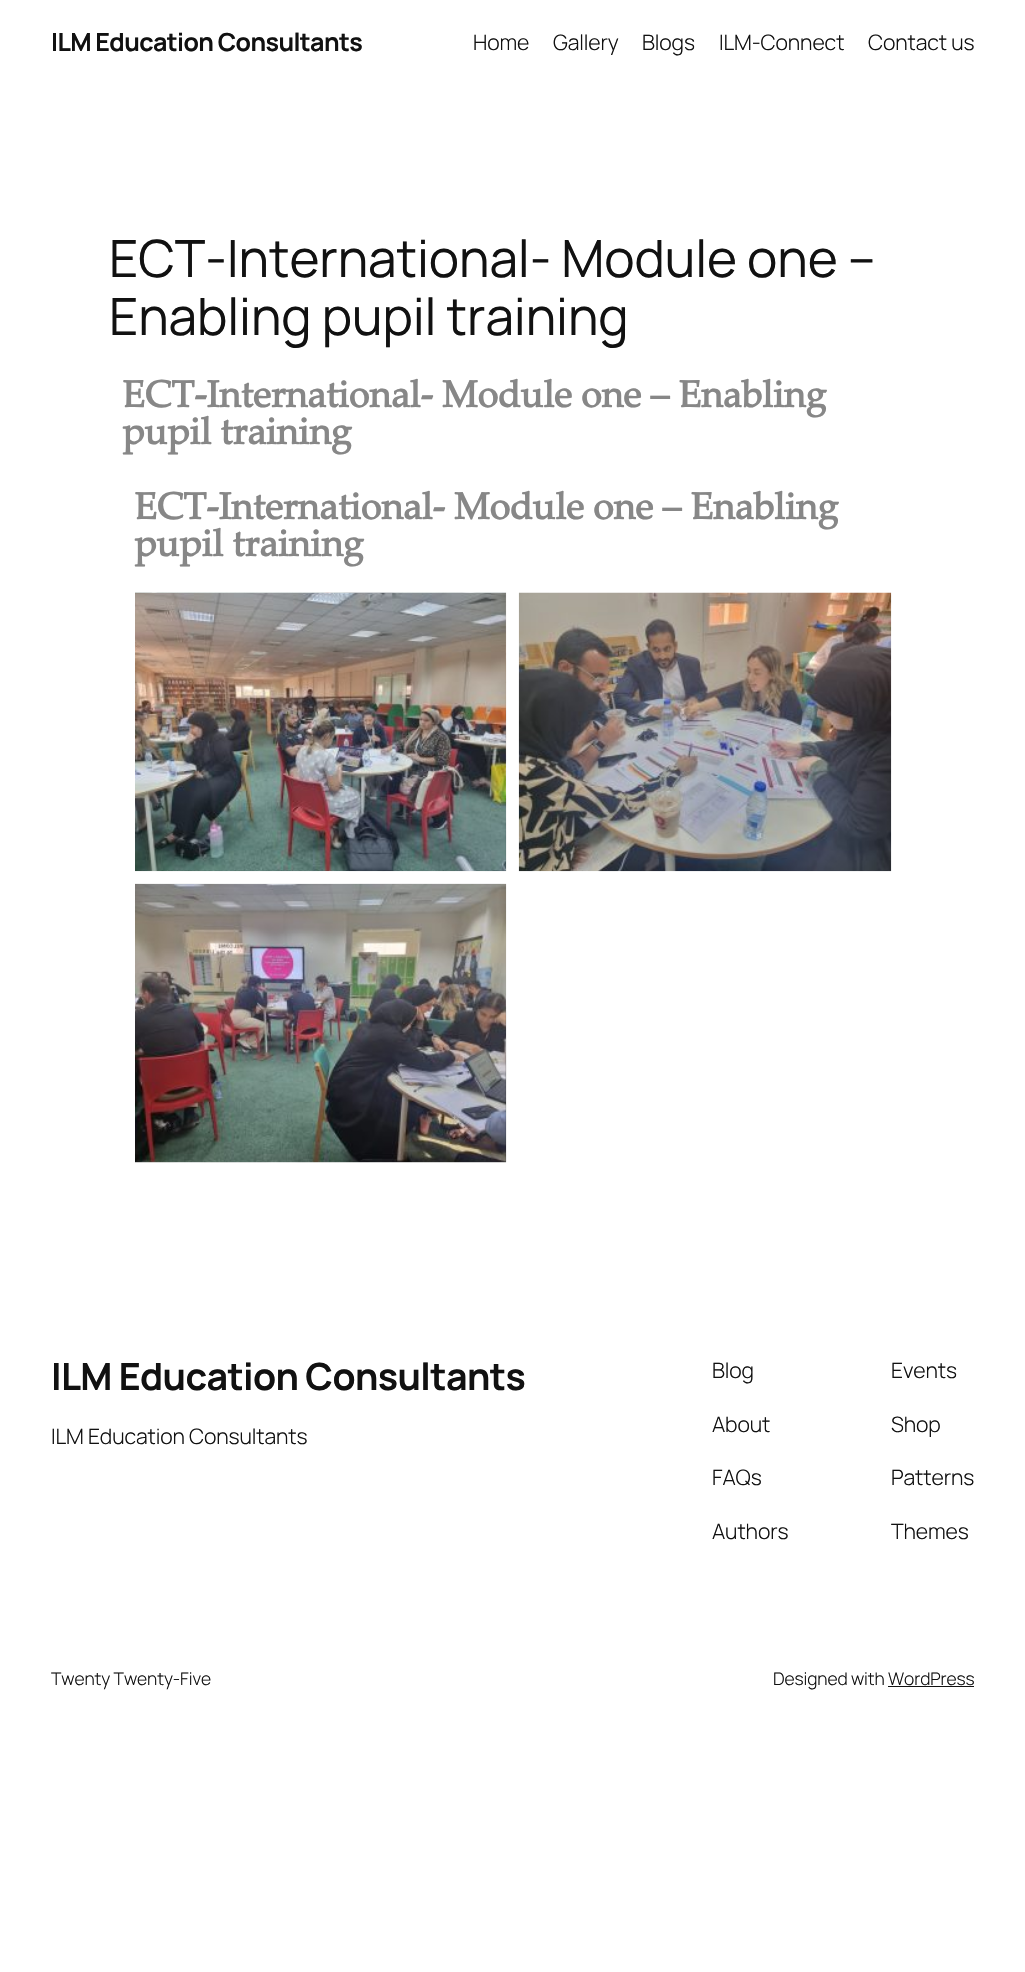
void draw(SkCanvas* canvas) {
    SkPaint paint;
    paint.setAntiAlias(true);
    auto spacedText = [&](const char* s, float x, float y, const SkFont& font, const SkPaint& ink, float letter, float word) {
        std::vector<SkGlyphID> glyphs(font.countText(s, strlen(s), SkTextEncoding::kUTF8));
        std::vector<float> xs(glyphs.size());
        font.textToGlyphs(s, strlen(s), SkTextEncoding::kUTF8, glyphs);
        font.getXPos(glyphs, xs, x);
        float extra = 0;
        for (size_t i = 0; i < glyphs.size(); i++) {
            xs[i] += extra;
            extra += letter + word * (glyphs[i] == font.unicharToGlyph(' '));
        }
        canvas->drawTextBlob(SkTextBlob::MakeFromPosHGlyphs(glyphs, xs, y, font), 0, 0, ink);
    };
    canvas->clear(0xFFFFFFFF);
    SkFont font1(fontMgr->matchFamilyStyle("Manrope", SkFontStyle::Bold()), 25);
    font1.setSubpixel(true);
    paint.setColor(0xFF111111);
    spacedText("ILM Education Consultants", 51, 51, font1, paint, -0.6f, 0);
    SkFont font2(fontMgr->matchFamilyStyle("Manrope", SkFontStyle(300, SkFontStyle::kNormal_Width, SkFontStyle::kUpright_Slant)), 21.25f);
    font2.setSubpixel(true);
    spacedText("Home", 473, 50, font2, paint, -0.1f, 0);
    spacedText("Gallery", 553, 50, font2, paint, -0.1f, 0);
    spacedText("Blogs", 642, 50, font2, paint, -0.1f, 0);
    spacedText("ILM-Connect", 719, 50, font2, paint, -0.1f, 0);
    spacedText("Contact us", 868, 50, font2, paint, -0.1f, 0);
    SkFont font3(fontMgr->matchFamilyStyle("Manrope", SkFontStyle::Normal()), 51.3f);
    font3.setSubpixel(true);
    spacedText("ECT-International- Module one –", 109, 277, font3, paint, -0.1f, 0);
    spacedText("Enabling pupil training", 109, 335, font3, paint, -0.1f, 0);
    SkFont font4(fontMgr->matchFamilyStyle("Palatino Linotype", SkFontStyle::Bold()), 37.5f);
    font4.setSubpixel(true);
    paint.setColor(0xFF878787);
    spacedText("ECT-International- Module one – Enabling", 122, 407, font4, paint, -0.1f, 0);
    spacedText("pupil training", 122, 444, font4, paint, -0.1f, 0);
    spacedText("ECT-International- Module one – Enabling", 134, 519, font4, paint, -0.1f, 0);
    spacedText("pupil training", 134, 556, font4, paint, -0.1f, 0);
    canvas->drawImageRect(SkImages::DeferredFromEncodedData(SkData::MakeFromFileName("img1.png")), SkRect::MakeXYWH(135, 592, 372, 280), SkSamplingOptions());
    canvas->drawImageRect(SkImages::DeferredFromEncodedData(SkData::MakeFromFileName("img2.png")), SkRect::MakeXYWH(518, 592, 374, 280), SkSamplingOptions());
    canvas->drawImageRect(SkImages::DeferredFromEncodedData(SkData::MakeFromFileName("img3.png")), SkRect::MakeXYWH(135, 883, 372, 280), SkSamplingOptions());
    SkFont font5(fontMgr->matchFamilyStyle("Manrope", SkFontStyle::Bold()), 37.5f);
    font5.setSubpixel(true);
    paint.setColor(0xFF111111);
    spacedText("ILM Education Consultants", 51, 1390, font5, paint, -0.6f, 0);
    spacedText("ILM Education Consultants", 51, 1444, font2, paint, -0.1f, 0);
    spacedText("Blog", 712, 1378, font2, paint, -0.1f, 0);
    spacedText("About", 712, 1432, font2, paint, -0.1f, 0);
    spacedText("FAQs", 712, 1485, font2, paint, -0.1f, 0);
    spacedText("Authors", 712, 1539, font2, paint, -0.1f, 0);
    spacedText("Events", 891, 1378, font2, paint, -0.1f, 0);
    spacedText("Shop", 891, 1432, font2, paint, -0.1f, 0);
    spacedText("Patterns", 891, 1485, font2, paint, -0.1f, 0);
    spacedText("Themes", 891, 1539, font2, paint, -0.1f, 0);
    SkFont font6(fontMgr->matchFamilyStyle("Manrope", SkFontStyle(300, SkFontStyle::kNormal_Width, SkFontStyle::kUpright_Slant)), 17.5f);
    font6.setSubpixel(true);
    spacedText("Twenty Twenty-Five", 51, 1685, font6, paint, -0.1f, 0);
    spacedText("Designed with WordPress", 773, 1685, font6, paint, -0.1f, 0);
    canvas->drawRect(SkRect::MakeXYWH(888, 1686, 86, 1), paint);
}
